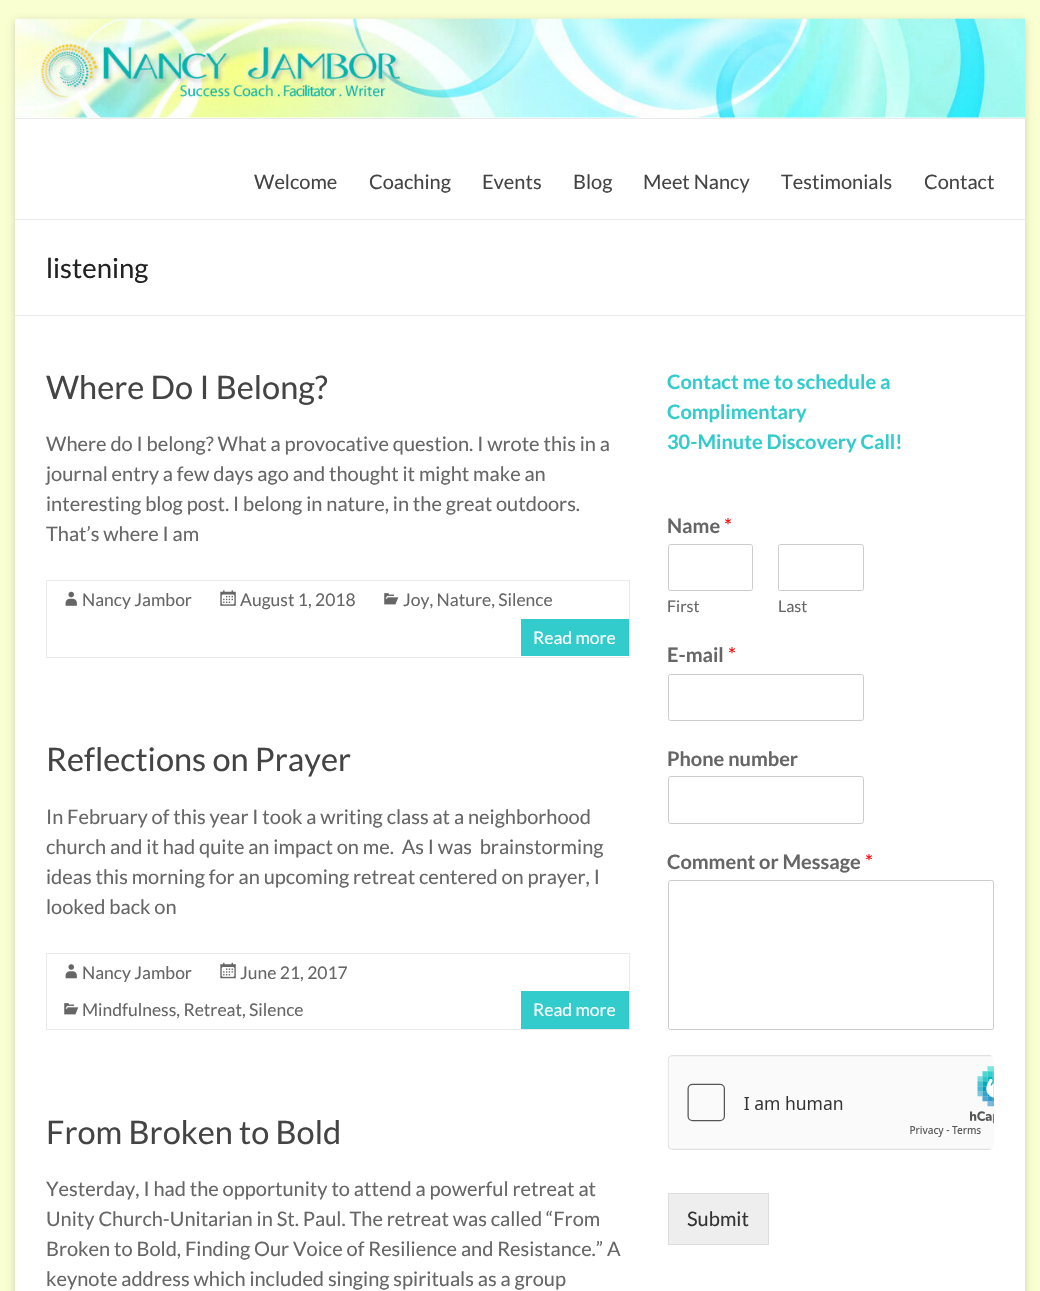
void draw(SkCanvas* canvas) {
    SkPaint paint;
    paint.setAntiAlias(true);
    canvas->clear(0xFFFAFFD1);
    paint.setColor(0x4D646464);
    paint.setMaskFilter(SkMaskFilter::MakeBlur(kNormal_SkBlurStyle, 4));
    canvas->drawRect(SkRect::MakeXYWH(15, 21, 1010, 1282), paint);
    paint.setMaskFilter(nullptr);
    paint.setColor(0xFFFFFFFF);
    canvas->drawRect(SkRect::MakeXYWH(15, 117, 1010, 1174), paint);
    canvas->drawImageRect(SkImages::DeferredFromEncodedData(SkData::MakeFromFileName("img1.png")), SkRect::MakeXYWH(15, 18, 1010, 100), SkSamplingOptions());
    paint.setColor(0xFFEAEAEA);
    canvas->drawRect(SkRect::MakeXYWH(15, 118, 1010, 1), paint);
    canvas->drawRect(SkRect::MakeXYWH(15, 219, 1010, 1), paint);
    SkFont font1(fontMgr->matchFamilyStyle("Lato", SkFontStyle::Normal()), 20);
    font1.setSubpixel(true);
    paint.setColor(0xFF444444);
    canvas->drawString("Welcome", 254, 189, font1, paint);
    canvas->drawString("Coaching", 369, 189, font1, paint);
    canvas->drawString("Events", 482, 189, font1, paint);
    canvas->drawString("Blog", 573, 189, font1, paint);
    canvas->drawString("Meet Nancy", 643, 189, font1, paint);
    canvas->drawString("Testimonials", 781, 189, font1, paint);
    canvas->drawString("Contact", 924, 189, font1, paint);
    paint.setColor(0xFFEAEAEA);
    canvas->drawRect(SkRect::MakeXYWH(15, 315, 1010, 1), paint);
    SkFont font2(fontMgr->matchFamilyStyle("Lato", SkFontStyle::Normal()), 27.5f);
    font2.setSubpixel(true);
    paint.setColor(0xFF222222);
    canvas->drawString("listening", 46, 278, font2, paint);
    SkFont font3(fontMgr->matchFamilyStyle("Lato", SkFontStyle::Normal()), 32.5f);
    font3.setSubpixel(true);
    paint.setColor(0xFF444444);
    canvas->drawString("Where Do I Belong?", 46, 399, font3, paint);
    paint.setColor(0xFF666666);
    canvas->drawString("Where do I belong? What a provocative question. I wrote this in a", 46, 451, font1, paint);
    canvas->drawString("journal entry a few days ago and thought it might make an", 46, 481, font1, paint);
    canvas->drawString("interesting blog post. I belong in nature, in the great outdoors.", 46, 511, font1, paint);
    canvas->drawString("That’s where I am", 46, 541, font1, paint);
    paint.setStyle(SkPaint::kStroke_Style);
    paint.setStrokeWidth(1);
    paint.setColor(0xFFEAEAEA);
    canvas->drawRect(SkRect::MakeXYWH(46.5f, 580.5f, 583, 77), paint);
    canvas->drawImageRect(SkImages::DeferredFromEncodedData(SkData::MakeFromFileName("img2.png")), SkRect::MakeXYWH(65, 591, 12, 15), SkSamplingOptions());
    SkFont font4(fontMgr->matchFamilyStyle("Lato", SkFontStyle::Normal()), 17.5f);
    font4.setSubpixel(true);
    paint.setStyle(SkPaint::kFill_Style);
    paint.setColor(0xFF666666);
    canvas->drawString("Nancy Jambor", 82, 606, font4, paint);
    canvas->drawImageRect(SkImages::DeferredFromEncodedData(SkData::MakeFromFileName("img3.png")), SkRect::MakeXYWH(220, 590, 16, 16), SkSamplingOptions());
    canvas->drawString("August 1, 2018", 240, 606, font4, paint);
    canvas->drawImageRect(SkImages::DeferredFromEncodedData(SkData::MakeFromFileName("img4.png")), SkRect::MakeXYWH(384, 593, 15, 12), SkSamplingOptions());
    canvas->drawString("Joy, Nature, Silence", 403, 606, font4, paint);
    paint.setColor(0xFF33CCCC);
    canvas->drawRect(SkRect::MakeXYWH(521, 619, 108, 37), paint);
    paint.setColor(0xFFFFFFFF);
    canvas->drawString("Read more", 533, 644, font4, paint);
    paint.setColor(0xFF444444);
    canvas->drawString("Reflections on Prayer", 46, 771, font3, paint);
    paint.setColor(0xFF666666);
    canvas->drawString("In February of this year I took a writing class at a neighborhood", 46, 824, font1, paint);
    canvas->drawString("church and it had quite an impact on me.  As I was  brainstorming", 46, 854, font1, paint);
    canvas->drawString("ideas this morning for an upcoming retreat centered on prayer, I", 46, 884, font1, paint);
    canvas->drawString("looked back on", 46, 914, font1, paint);
    paint.setStyle(SkPaint::kStroke_Style);
    paint.setColor(0xFFEAEAEA);
    canvas->drawRect(SkRect::MakeXYWH(46.5f, 953.5f, 583, 76), paint);
    canvas->drawImageRect(SkImages::DeferredFromEncodedData(SkData::MakeFromFileName("img5.png")), SkRect::MakeXYWH(65, 964, 12, 15), SkSamplingOptions());
    paint.setStyle(SkPaint::kFill_Style);
    paint.setColor(0xFF666666);
    canvas->drawString("Nancy Jambor", 82, 979, font4, paint);
    canvas->drawImageRect(SkImages::DeferredFromEncodedData(SkData::MakeFromFileName("img6.png")), SkRect::MakeXYWH(220, 962, 16, 17), SkSamplingOptions());
    canvas->drawString("June 21, 2017", 240, 979, font4, paint);
    canvas->drawImageRect(SkImages::DeferredFromEncodedData(SkData::MakeFromFileName("img4.png")), SkRect::MakeXYWH(64, 1003, 15, 12), SkSamplingOptions());
    canvas->drawString("Mindfulness, Retreat, Silence", 82, 1016, font4, paint);
    paint.setColor(0xFF33CCCC);
    canvas->drawRect(SkRect::MakeXYWH(521, 991, 108, 38), paint);
    paint.setColor(0xFFFFFFFF);
    canvas->drawString("Read more", 533, 1016, font4, paint);
    paint.setColor(0xFF444444);
    canvas->drawString("From Broken to Bold", 46, 1144, font3, paint);
    paint.setColor(0xFF666666);
    canvas->drawString("Yesterday, I had the opportunity to attend a powerful retreat at", 46, 1196, font1, paint);
    canvas->drawString("Unity Church-Unitarian in St. Paul. The retreat was called “From", 46, 1226, font1, paint);
    canvas->drawString("Broken to Bold, Finding Our Voice of Resilience and Resistance.” A", 46, 1256, font1, paint);
    canvas->drawString("keynote address which included singing spirituals as a group", 46, 1286, font1, paint);
    SkFont font5(fontMgr->matchFamilyStyle("Lato", SkFontStyle::Bold()), 20);
    font5.setSubpixel(true);
    paint.setColor(0xFF33CCCC);
    canvas->drawString("Contact me to schedule a", 667, 389, font5, paint);
    canvas->drawString("Complimentary", 667, 419, font5, paint);
    canvas->drawString("30-Minute Discovery Call!", 667, 449, font5, paint);
    paint.setColor(0xFF666666);
    canvas->drawString("Name", 667, 533, font5, paint);
    paint.setColor(0xFFFF0000);
    canvas->drawString("*", 724, 533, font1, paint);
    paint.setStyle(SkPaint::kStroke_Style);
    paint.setColor(0xFFCCCCCC);
    canvas->drawRoundRect(SkRect::MakeXYWH(668.5f, 544.5f, 84, 46), 2, 2, paint);
    SkFont font6(fontMgr->matchFamilyStyle("Lato", SkFontStyle::Normal()), 16);
    font6.setSubpixel(true);
    paint.setStyle(SkPaint::kFill_Style);
    paint.setColor(0xFF666666);
    canvas->drawString("First", 667, 612, font6, paint);
    paint.setStyle(SkPaint::kStroke_Style);
    paint.setColor(0xFFCCCCCC);
    canvas->drawRoundRect(SkRect::MakeXYWH(778.5f, 544.5f, 85, 46), 2, 2, paint);
    paint.setStyle(SkPaint::kFill_Style);
    paint.setColor(0xFF666666);
    canvas->drawString("Last", 778, 612, font6, paint);
    canvas->drawString("E-mail", 667, 662, font5, paint);
    paint.setColor(0xFFFF0000);
    canvas->drawString("*", 728, 662, font1, paint);
    paint.setStyle(SkPaint::kStroke_Style);
    paint.setColor(0xFFCCCCCC);
    canvas->drawRoundRect(SkRect::MakeXYWH(668.5f, 674.5f, 195, 46), 2, 2, paint);
    paint.setStyle(SkPaint::kFill_Style);
    paint.setColor(0xFF666666);
    canvas->drawString("Phone number", 667, 766, font5, paint);
    paint.setStyle(SkPaint::kStroke_Style);
    paint.setColor(0xFFCCCCCC);
    canvas->drawRoundRect(SkRect::MakeXYWH(668.5f, 776.5f, 195, 47), 2, 2, paint);
    paint.setStyle(SkPaint::kFill_Style);
    paint.setColor(0xFF666666);
    canvas->drawString("Comment or Message", 667, 869, font5, paint);
    paint.setColor(0xFFFF0000);
    canvas->drawString("*", 865, 869, font1, paint);
    paint.setStyle(SkPaint::kStroke_Style);
    paint.setColor(0xFFCCCCCC);
    canvas->drawRoundRect(SkRect::MakeXYWH(668.5f, 880.5f, 325, 149), 2, 2, paint);
    canvas->drawImageRect(SkImages::DeferredFromEncodedData(SkData::MakeFromFileName("img7.png")), SkRect::MakeXYWH(667, 1055, 327, 95), SkSamplingOptions());
    paint.setStyle(SkPaint::kFill_Style);
    paint.setColor(0xFFEEEEEE);
    canvas->drawRect(SkRect::MakeXYWH(668.5f, 1193.5f, 100, 51), paint);
    paint.setStyle(SkPaint::kStroke_Style);
    paint.setColor(0xFFDDDDDD);
    canvas->drawRect(SkRect::MakeXYWH(668.5f, 1193.5f, 100, 51), paint);
    paint.setStyle(SkPaint::kFill_Style);
    paint.setColor(0xFF333333);
    canvas->drawString("Submit", 687, 1226, font1, paint);
}
